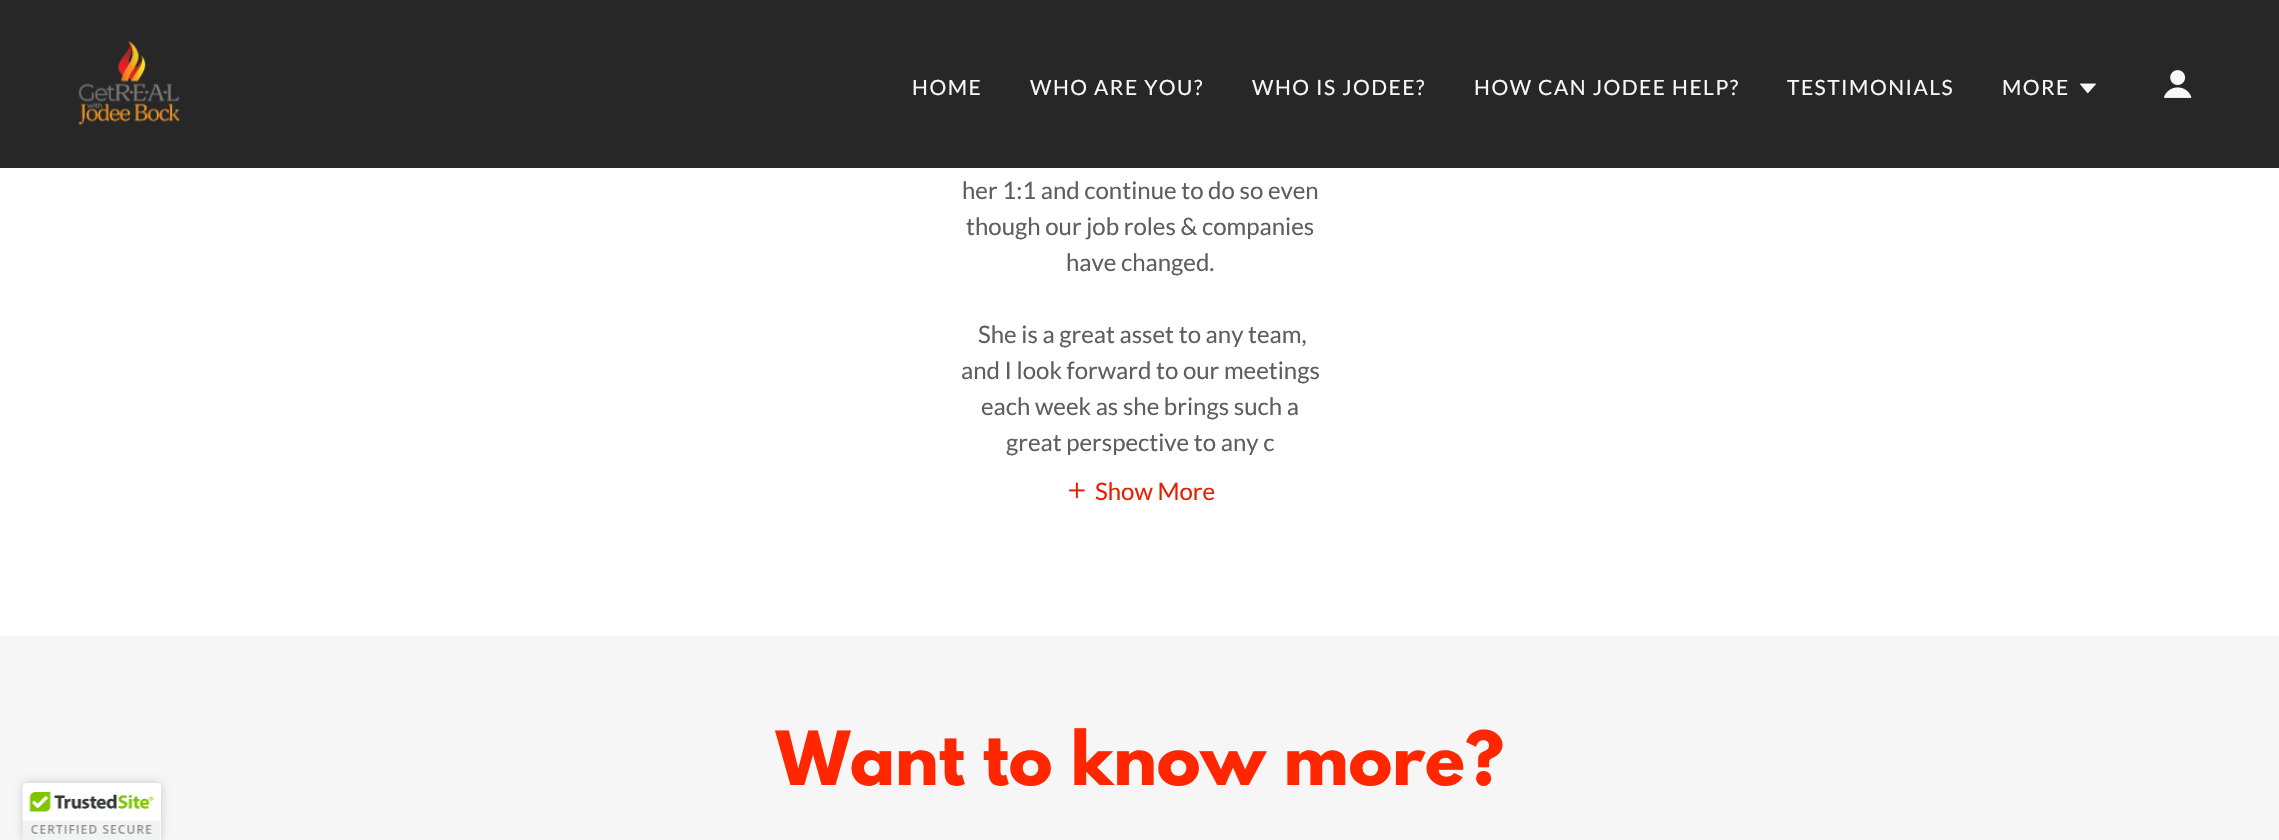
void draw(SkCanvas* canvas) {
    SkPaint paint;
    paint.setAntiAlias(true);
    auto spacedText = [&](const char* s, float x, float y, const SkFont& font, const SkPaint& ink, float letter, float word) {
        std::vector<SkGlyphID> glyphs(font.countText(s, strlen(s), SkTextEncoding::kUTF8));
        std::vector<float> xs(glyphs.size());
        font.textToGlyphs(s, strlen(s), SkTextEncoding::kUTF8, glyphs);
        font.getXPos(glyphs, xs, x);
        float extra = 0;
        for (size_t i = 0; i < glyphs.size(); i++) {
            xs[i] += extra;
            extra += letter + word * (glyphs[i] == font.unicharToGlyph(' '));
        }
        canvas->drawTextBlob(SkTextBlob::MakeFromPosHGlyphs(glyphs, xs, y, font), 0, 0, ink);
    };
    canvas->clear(0xFFFFFFFF);
    paint.setColor(0xFF272727);
    canvas->drawRect(SkRect::MakeXYWH(0, 0, 2279, 168), paint);
    canvas->drawImageRect(SkImages::DeferredFromEncodedData(SkData::MakeFromFileName("img1.png")), SkRect::MakeXYWH(78, 40, 102, 86), SkSamplingOptions());
    SkFont font1(fontMgr->matchFamilyStyle("Lato", SkFontStyle::Normal()), 21);
    font1.setSubpixel(true);
    paint.setColor(0xFFF7F7F7);
    spacedText("HOME", 912, 95, font1, paint, 1.5f, 0);
    spacedText("WHO ARE YOU?", 1030, 95, font1, paint, 1.5f, 0);
    spacedText("WHO IS JODEE?", 1252, 95, font1, paint, 1.5f, 0);
    spacedText("HOW CAN JODEE HELP?", 1474, 95, font1, paint, 1.5f, 0);
    spacedText("TESTIMONIALS", 1787, 95, font1, paint, 1.5f, 0);
    spacedText("MORE", 2002, 95, font1, paint, 1.5f, 0);
    canvas->drawImageRect(SkImages::DeferredFromEncodedData(SkData::MakeFromFileName("img2.png")), SkRect::MakeXYWH(2080, 83, 16, 11), SkSamplingOptions());
    canvas->drawImageRect(SkImages::DeferredFromEncodedData(SkData::MakeFromFileName("img3.png")), SkRect::MakeXYWH(2164, 70, 28, 28), SkSamplingOptions());
    SkFont font2(fontMgr->matchFamilyStyle("Lato", SkFontStyle::Normal()), 24);
    font2.setSubpixel(true);
    paint.setColor(0xFF5E5E5E);
    canvas->drawString("her 1:1 and continue to do so even", 962, 199, font2, paint);
    canvas->drawString("though our job roles & companies", 966, 235, font2, paint);
    canvas->drawString("have changed.", 1066, 271, font2, paint);
    canvas->drawString("She is a great asset to any team,", 978, 343, font2, paint);
    canvas->drawString("and I look forward to our meetings", 961, 379, font2, paint);
    canvas->drawString("each week as she brings such a", 981, 415, font2, paint);
    canvas->drawString("great perspective to any c", 1006, 451, font2, paint);
    canvas->drawImageRect(SkImages::DeferredFromEncodedData(SkData::MakeFromFileName("img4.png")), SkRect::MakeXYWH(1069, 482, 16, 17), SkSamplingOptions());
    paint.setColor(0xFFE52200);
    canvas->drawString("Show More", 1095, 500, font2, paint);
    paint.setColor(0xFFF6F6F6);
    canvas->drawRect(SkRect::MakeXYWH(0, 636, 2279, 204), paint);
    SkFont font3(fontMgr->matchFamilyStyle("League Spartan", SkFontStyle::Bold()), 66);
    font3.setSubpixel(true);
    paint.setColor(0xFFFF2600);
    canvas->drawString("Want to know more?", 776, 785, font3, paint);
    paint.setColor(0x33000000);
    paint.setMaskFilter(SkMaskFilter::MakeBlur(kNormal_SkBlurStyle, 4));
    canvas->drawRoundRect(SkRect::MakeXYWH(23, 783, 138, 57), 3, 3, paint);
    paint.setMaskFilter(nullptr);
    paint.setColor(0xFFFFFFFF);
    canvas->drawPath(SkPathBuilder().moveTo(26, 783).lineTo(158, 783).cubicTo(159.5f, 783, 161, 784.5f, 161, 786).lineTo(161, 840).lineTo(23, 840).lineTo(23, 786).cubicTo(23, 784.5f, 24.5f, 783, 26, 783).close().detach(), paint);
    canvas->drawImageRect(SkImages::DeferredFromEncodedData(SkData::MakeFromFileName("img5.png")), SkRect::MakeXYWH(22, 785, 139, 55), SkSamplingOptions());
}
